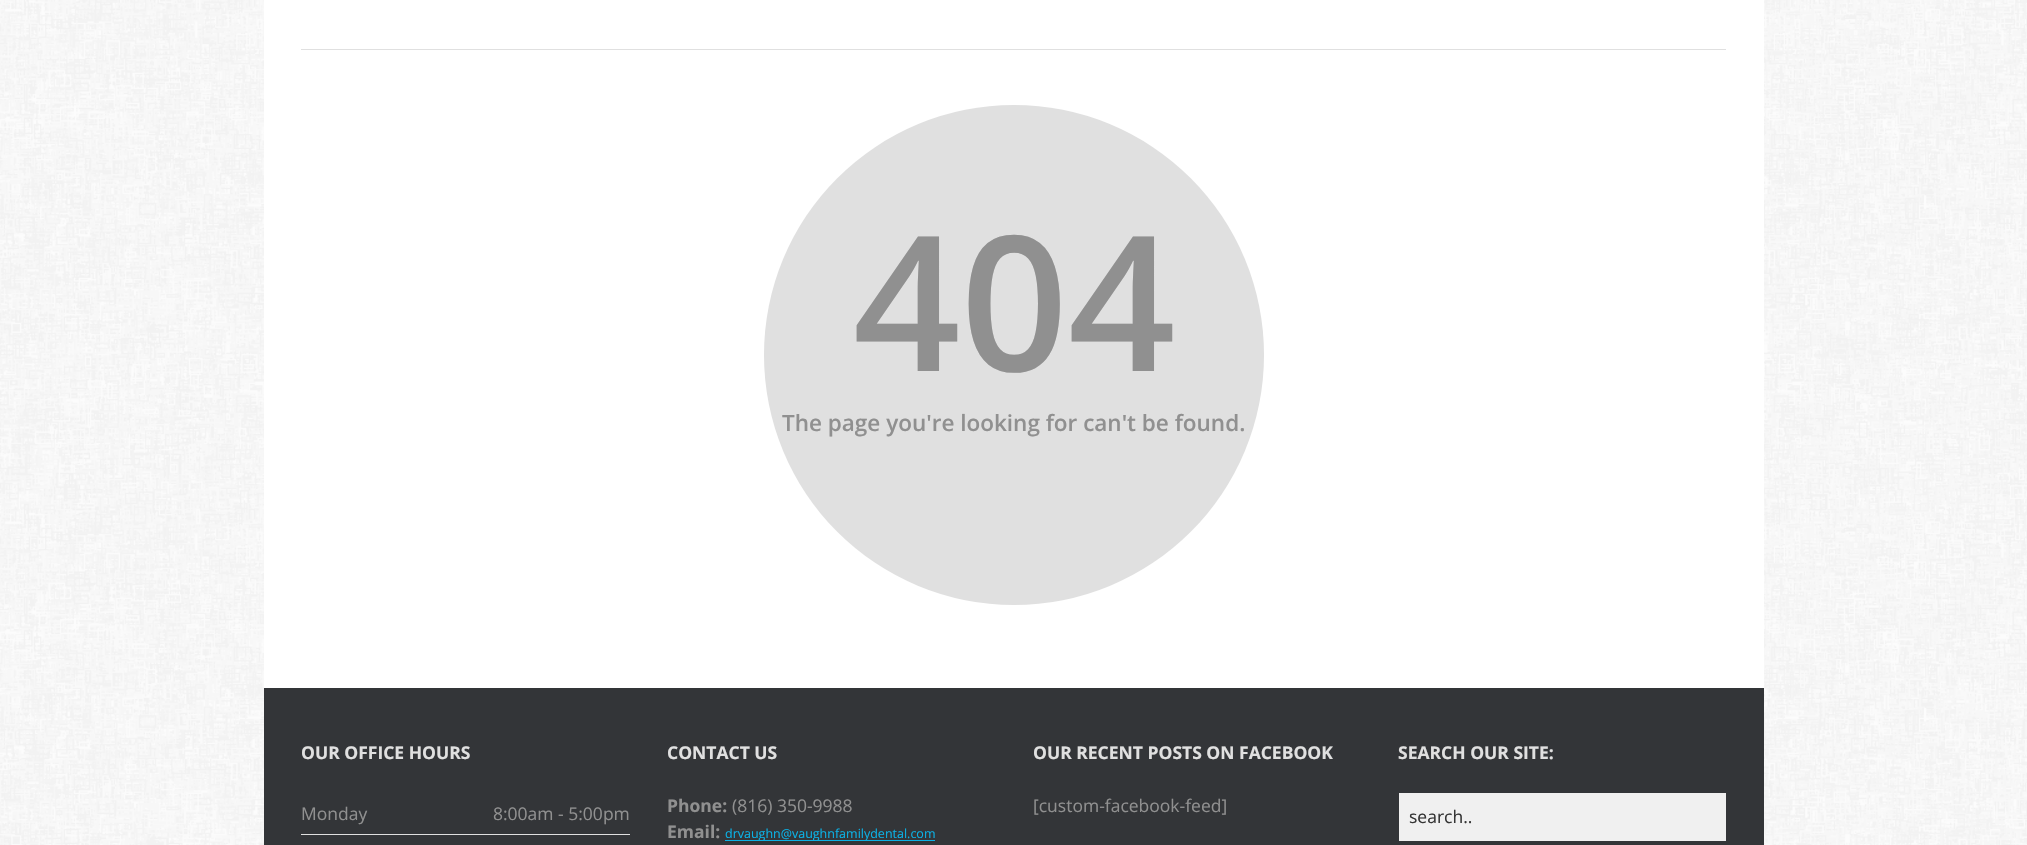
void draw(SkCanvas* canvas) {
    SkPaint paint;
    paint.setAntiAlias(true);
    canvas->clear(0xFFFFFFFF);
    canvas->drawImageRect(SkImages::DeferredFromEncodedData(SkData::MakeFromFileName("img1.png")), SkRect::MakeXYWH(0, 0, 2027, 845), SkSamplingOptions());
    paint.setColor(0xFFFFFFFF);
    canvas->drawRect(SkRect::MakeXYWH(264, 0, 1500, 688), paint);
    paint.setColor(0xFFE0E0E0);
    canvas->drawRect(SkRect::MakeXYWH(301, 49, 1425, 1), paint);
    canvas->drawCircle(1014, 355, 250, paint);
    SkFont font1(fontMgr->matchFamilyStyle("Open Sans", SkFontStyle(600, SkFontStyle::kNormal_Width, SkFontStyle::kUpright_Slant)), 188);
    font1.setSubpixel(true);
    paint.setColor(0xFF909090);
    canvas->drawString("404", 853, 371, font1, paint);
    SkFont font2(fontMgr->matchFamilyStyle("Open Sans", SkFontStyle(600, SkFontStyle::kNormal_Width, SkFontStyle::kUpright_Slant)), 22.5f);
    font2.setSubpixel(true);
    canvas->drawString("The page you're looking for can't be found.", 782, 431, font2, paint);
    paint.setColor(0xFF333538);
    canvas->drawRect(SkRect::MakeXYWH(264, 688, 1500, 157), paint);
    SkFont font3(fontMgr->matchFamilyStyle("Open Sans", SkFontStyle::Bold()), 17.5f);
    font3.setSubpixel(true);
    paint.setColor(0xFFE0E0E0);
    canvas->drawString("OUR OFFICE HOURS", 301, 759, font3, paint);
    canvas->drawRect(SkRect::MakeXYWH(301, 834, 329, 1), paint);
    SkFont font4(fontMgr->matchFamilyStyle("Open Sans", SkFontStyle::Normal()), 17.5f);
    font4.setSubpixel(true);
    paint.setColor(0xFF909090);
    canvas->drawString("Monday", 301, 820, font4, paint);
    canvas->drawString("8:00am - 5:00pm", 493, 820, font4, paint);
    paint.setColor(0xFFE0E0E0);
    canvas->drawString("CONTACT US", 667, 759, font3, paint);
    paint.setColor(0xFF909090);
    canvas->drawString("Phone:", 667, 812, font3, paint);
    canvas->drawString("(816) 350-9988", 732, 812, font4, paint);
    canvas->drawString("Email:", 667, 838, font3, paint);
    paint.setColor(0xFF0BB1E5);
    canvas->drawRect(SkRect::MakeXYWH(725, 840, 210, 1), paint);
    SkFont font5(fontMgr->matchFamilyStyle("Open Sans", SkFontStyle::Normal()), 12.5f);
    font5.setSubpixel(true);
    canvas->drawString("drvaughn@vaughnfamilydental.com", 725, 838, font5, paint);
    paint.setColor(0xFFE0E0E0);
    canvas->drawString("OUR RECENT POSTS ON FACEBOOK", 1033, 759, font3, paint);
    paint.setColor(0xFF909090);
    canvas->drawString("[custom-facebook-feed]", 1033, 812, font4, paint);
    paint.setColor(0xFFE0E0E0);
    canvas->drawString("SEARCH OUR SITE:", 1398, 759, font3, paint);
    paint.setColor(0xFFF0F0F0);
    canvas->drawRect(SkRect::MakeXYWH(1399, 793, 327, 48), paint);
    paint.setColor(0xFF353535);
    canvas->drawString("search..", 1409, 823, font4, paint);
}
